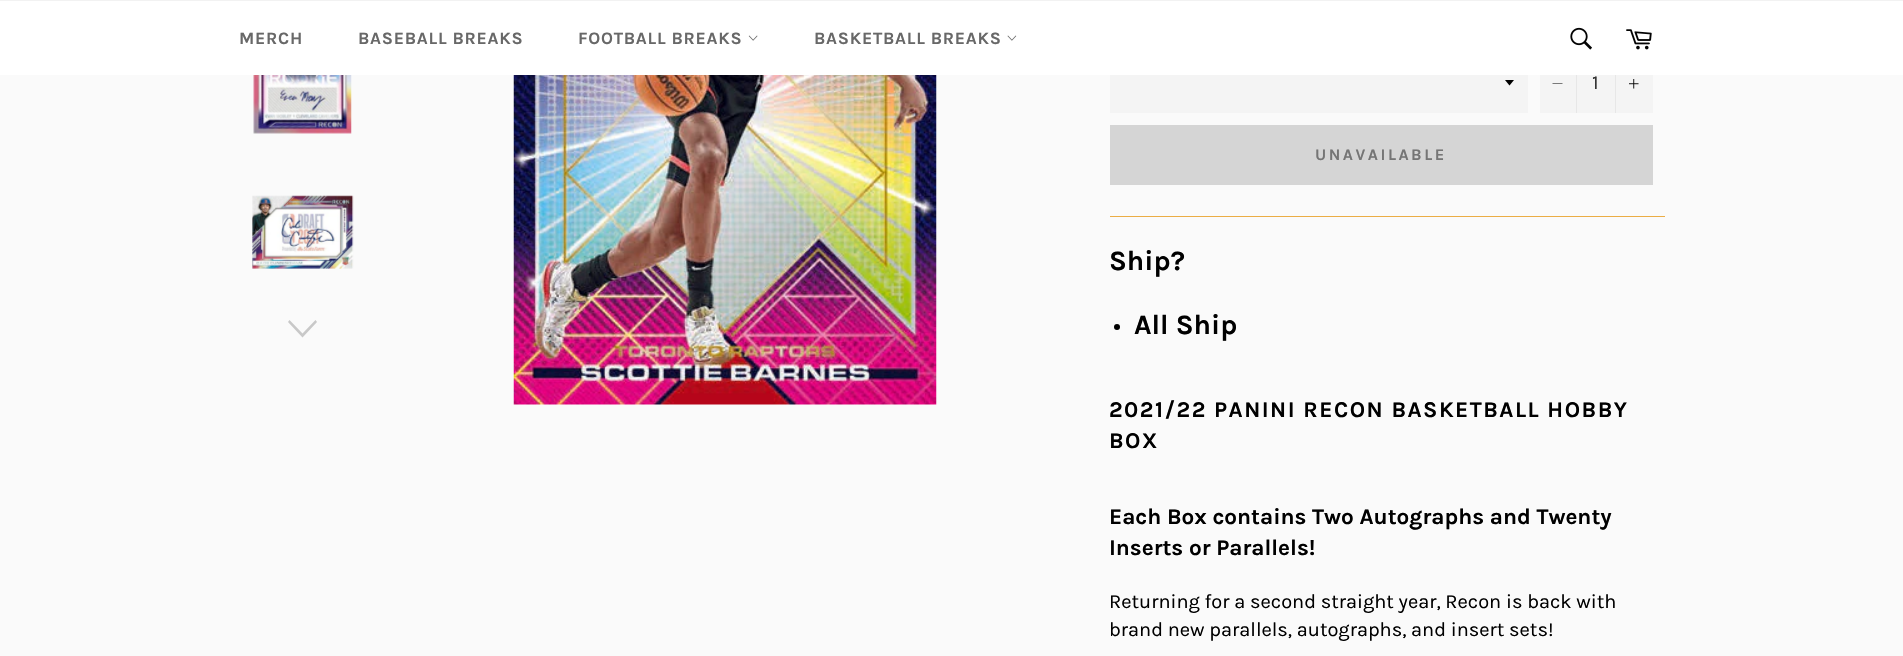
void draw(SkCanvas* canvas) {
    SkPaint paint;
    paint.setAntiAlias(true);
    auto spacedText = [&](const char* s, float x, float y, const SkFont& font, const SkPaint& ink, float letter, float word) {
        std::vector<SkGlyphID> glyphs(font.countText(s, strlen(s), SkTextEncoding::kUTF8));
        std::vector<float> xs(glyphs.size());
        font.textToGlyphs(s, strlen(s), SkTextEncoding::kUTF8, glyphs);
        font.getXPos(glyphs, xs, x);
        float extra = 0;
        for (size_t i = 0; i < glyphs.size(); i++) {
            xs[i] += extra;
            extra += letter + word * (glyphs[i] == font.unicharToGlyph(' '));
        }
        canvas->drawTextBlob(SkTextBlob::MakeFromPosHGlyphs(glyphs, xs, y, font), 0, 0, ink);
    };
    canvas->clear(0xFFFAFAFA);
    paint.setColor(0xFFFFFFFF);
    canvas->drawRect(SkRect::MakeXYWH(0, 1, 1903, 74), paint);
    paint.setColor(0xFFF2F2F2);
    canvas->drawRect(SkRect::MakeXYWH(0, 0, 1903, 1), paint);
    SkFont font1(fontMgr->matchFamilyStyle("Karla", SkFontStyle::Bold()), 17.5f);
    font1.setSubpixel(true);
    paint.setColor(0xFF686868);
    spacedText("MERCH", 239, 44, font1, paint, 0.75f, 0);
    spacedText("BASEBALL BREAKS", 358, 44, font1, paint, 0.75f, 0);
    spacedText("FOOTBALL BREAKS", 578, 44, font1, paint, 0.75f, 0);
    canvas->drawImageRect(SkImages::DeferredFromEncodedData(SkData::MakeFromFileName("img1.png")), SkRect::MakeXYWH(748, 35, 10, 6), SkSamplingOptions());
    spacedText("BASKETBALL BREAKS", 814, 44, font1, paint, 0.75f, 0);
    canvas->drawImageRect(SkImages::DeferredFromEncodedData(SkData::MakeFromFileName("img2.png")), SkRect::MakeXYWH(1007, 35, 10, 6), SkSamplingOptions());
    canvas->drawImageRect(SkImages::DeferredFromEncodedData(SkData::MakeFromFileName("img3.png")), SkRect::MakeXYWH(1570, 27, 22, 23), SkSamplingOptions());
    canvas->drawImageRect(SkImages::DeferredFromEncodedData(SkData::MakeFromFileName("img4.png")), SkRect::MakeXYWH(1626, 29, 26, 21), SkSamplingOptions());
    canvas->drawImageRect(SkImages::DeferredFromEncodedData(SkData::MakeFromFileName("img5.png")), SkRect::MakeXYWH(253, 75, 99, 59), SkSamplingOptions());
    canvas->drawImageRect(SkImages::DeferredFromEncodedData(SkData::MakeFromFileName("img6.png")), SkRect::MakeXYWH(252, 195, 102, 74), SkSamplingOptions());
    paint.setColor(0xFFC8C8C8);
    canvas->drawPath(SkPathBuilder().moveTo(315.5f, 320).lineTo(317, 322).lineTo(302.5f, 337.5f).lineTo(288, 322).lineTo(289.5f, 320).lineTo(302.5f, 333.5f).close().detach(), paint);
    canvas->drawImageRect(SkImages::DeferredFromEncodedData(SkData::MakeFromFileName("img7.png")), SkRect::MakeXYWH(513, 75, 424, 330), SkSamplingOptions());
    paint.setColor(0xFFF4F4F4);
    canvas->drawRect(SkRect::MakeXYWH(1110, 75, 418, 38), paint);
    paint.setColor(0xFF000000);
    canvas->drawPath(SkPathBuilder().moveTo(1505, 80).lineTo(1509.5f, 85.5f).lineTo(1514, 80).close().detach(), paint);
    paint.setColor(0xFFF4F4F4);
    canvas->drawRect(SkRect::MakeXYWH(1540, 75, 113, 38), paint);
    paint.setColor(0xFFE7E7E7);
    canvas->drawRect(SkRect::MakeXYWH(1576, 75, 1, 38), paint);
    paint.setColor(0xFF000000);
    canvas->drawPath(SkPathBuilder(SkPathFillType::kEvenOdd).moveTo(1562.5f, 83.5f).lineTo(1562.5f, 84).lineTo(1552.5f, 84).lineTo(1552.5f, 83.5f).close().detach(), paint);
    SkFont font2(fontMgr->matchFamilyStyle("Karla", SkFontStyle::Normal()), 20);
    font2.setSubpixel(true);
    paint.setColor(0xFF333333);
    canvas->drawString("1", 1592, 89, font2, paint);
    paint.setColor(0xFFE7E7E7);
    canvas->drawRect(SkRect::MakeXYWH(1615, 75, 1, 38), paint);
    canvas->drawImageRect(SkImages::DeferredFromEncodedData(SkData::MakeFromFileName("img8.png")), SkRect::MakeXYWH(1629, 79, 10, 10), SkSamplingOptions());
    paint.setColor(0xFFD5D5D5);
    canvas->drawRect(SkRect::MakeXYWH(1110, 125, 543, 60), paint);
    SkFont font3(fontMgr->matchFamilyStyle("Karla", SkFontStyle::Bold()), 16.25f);
    font3.setSubpixel(true);
    paint.setColor(0xFF757575);
    spacedText("UNAVAILABLE", 1315, 160, font3, paint, 2.5f, 0);
    paint.setColor(0xFFEBAD45);
    canvas->drawRect(SkRect::MakeXYWH(1110, 216, 555, 1), paint);
    SkFont font4(fontMgr->matchFamilyStyle("Karla", SkFontStyle::Bold()), 28);
    font4.setSubpixel(true);
    paint.setColor(0xFF000000);
    canvas->drawString("Ship?", 1109, 270, font4, paint);
    canvas->drawCircle(1117, 327, 3, paint);
    canvas->drawString("All Ship", 1134, 334, font4, paint);
    SkFont font5(fontMgr->matchFamilyStyle("Karla", SkFontStyle::Bold()), 22.5f);
    font5.setSubpixel(true);
    spacedText("2021/22 PANINI RECON BASKETBALL HOBBY", 1109, 417, font5, paint, 1.5f, 0);
    spacedText("BOX", 1109, 448, font5, paint, 1.5f, 0);
    canvas->drawString("Each Box contains Two Autographs and Twenty", 1109, 524, font5, paint);
    canvas->drawString("Inserts or Parallels!", 1109, 555, font5, paint);
    canvas->drawString("Returning for a second straight year, Recon is back with", 1109, 608, font2, paint);
    canvas->drawString("brand new parallels, autographs, and insert sets!", 1109, 636, font2, paint);
}
